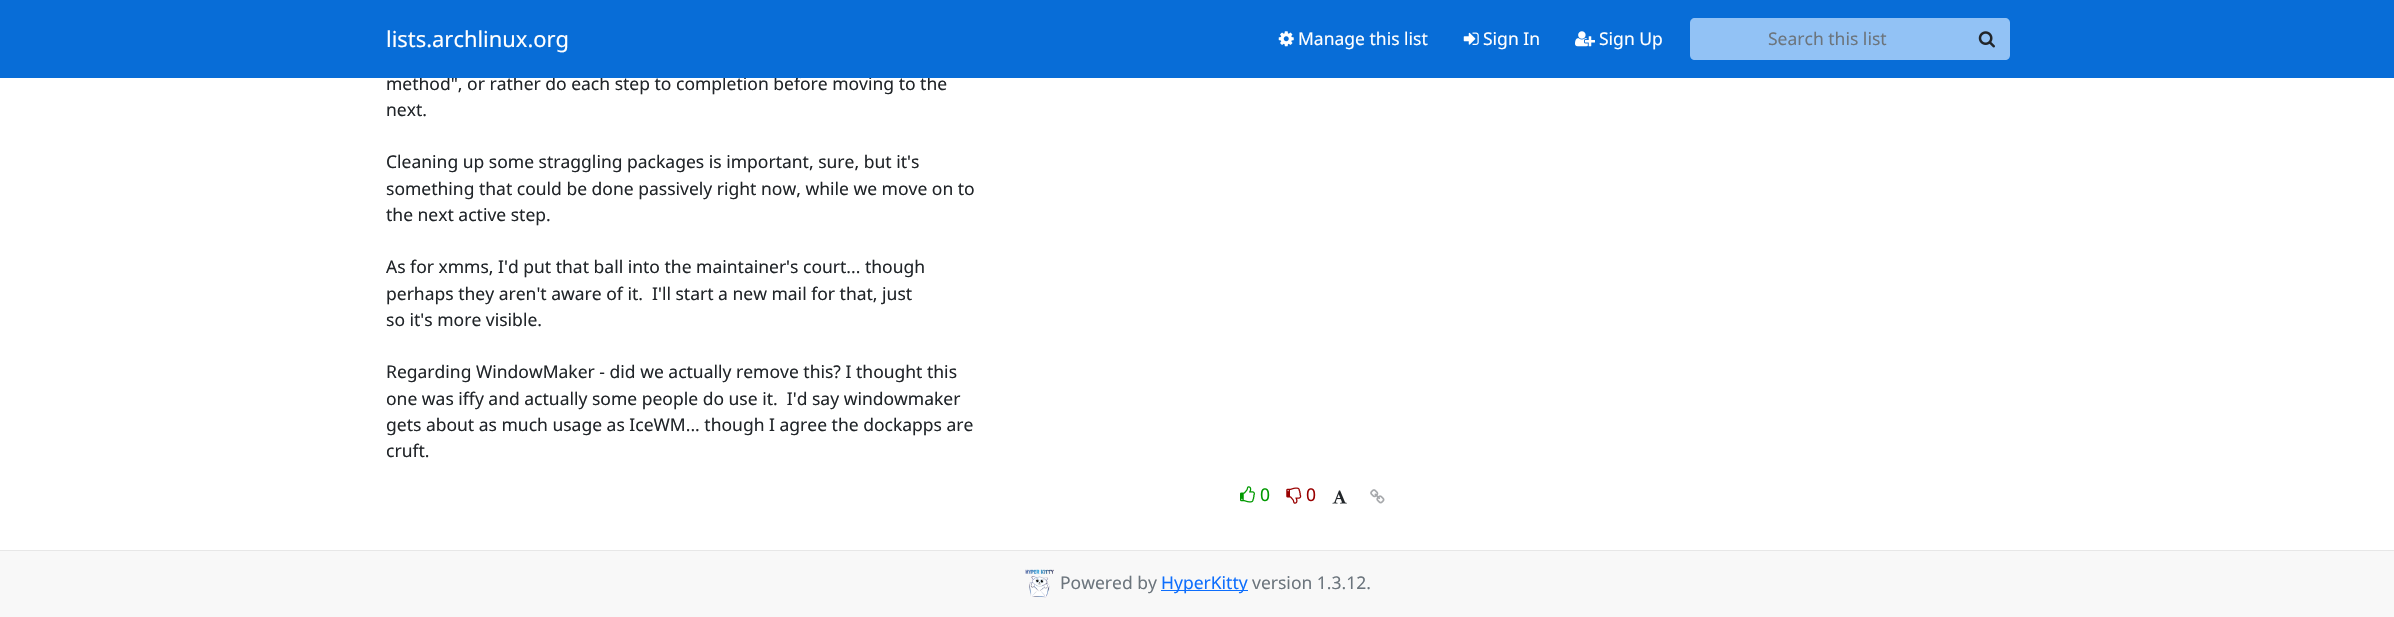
void draw(SkCanvas* canvas) {
    SkPaint paint;
    paint.setAntiAlias(true);
    canvas->clear(0xFFFFFFFF);
    SkFont font1(fontMgr->matchFamilyStyle("Noto Sans", SkFontStyle::Normal()), 17.5f);
    font1.setSubpixel(true);
    paint.setColor(0xFF212529);
    canvas->drawString("method\", or rather do each step to completion before moving to the", 386, 90, font1, paint);
    paint.setColor(0xFF086DD7);
    canvas->drawRect(SkRect::MakeXYWH(0, 0, 2394, 78), paint);
    SkFont font2(fontMgr->matchFamilyStyle("Noto Sans", SkFontStyle::Normal()), 21.9f);
    font2.setSubpixel(true);
    paint.setColor(0xFFFFFFFF);
    canvas->drawString("lists.archlinux.org", 386, 47, font2, paint);
    canvas->drawImageRect(SkImages::DeferredFromEncodedData(SkData::MakeFromFileName("img1.png")), SkRect::MakeXYWH(1278, 31, 16, 16), SkSamplingOptions());
    canvas->drawString("Manage this list", 1298, 45, font1, paint);
    canvas->drawImageRect(SkImages::DeferredFromEncodedData(SkData::MakeFromFileName("img2.png")), SkRect::MakeXYWH(1463, 32, 16, 13), SkSamplingOptions());
    canvas->drawString("Sign In", 1483, 45, font1, paint);
    canvas->drawImageRect(SkImages::DeferredFromEncodedData(SkData::MakeFromFileName("img3.png")), SkRect::MakeXYWH(1575, 31, 20, 16), SkSamplingOptions());
    canvas->drawString("Sign Up", 1599, 45, font1, paint);
    paint.setColor(0xFF92C2F5);
    canvas->drawPath(SkPathBuilder().moveTo(1695, 18).lineTo(1966, 18).lineTo(1966, 60).lineTo(1695, 60).cubicTo(1692, 60, 1690, 58, 1690, 55).lineTo(1690, 23).cubicTo(1690, 20, 1692, 18, 1695, 18).close().detach(), paint);
    paint.setColor(0xFF6C757D);
    canvas->drawString("Search this list", 1768, 45, font1, paint);
    paint.setColor(0xFF92C2F5);
    canvas->drawPath(SkPathBuilder().moveTo(1965, 18).lineTo(2005, 18).cubicTo(2008, 18, 2010, 20, 2010, 23).lineTo(2010, 55).cubicTo(2010, 58, 2008, 60, 2005, 60).lineTo(1965, 60).close().detach(), paint);
    canvas->drawImageRect(SkImages::DeferredFromEncodedData(SkData::MakeFromFileName("img4.png")), SkRect::MakeXYWH(1978, 31, 17, 17), SkSamplingOptions());
    paint.setColor(0xFF212529);
    canvas->drawString("next.", 386, 116, font1, paint);
    canvas->drawString("Cleaning up some straggling packages is important, sure, but it's", 386, 168, font1, paint);
    canvas->drawString("something that could be done passively right now, while we move on to", 386, 195, font1, paint);
    canvas->drawString("the next active step.", 386, 221, font1, paint);
    canvas->drawString("As for xmms, I'd put that ball into the maintainer's court... though", 386, 273, font1, paint);
    canvas->drawString("perhaps they aren't aware of it.  I'll start a new mail for that, just", 386, 300, font1, paint);
    canvas->drawString("so it's more visible.", 386, 326, font1, paint);
    canvas->drawString("Regarding WindowMaker - did we actually remove this? I thought this", 386, 378, font1, paint);
    canvas->drawString("one was iffy and actually some people do use it.  I'd say windowmaker", 386, 405, font1, paint);
    canvas->drawString("gets about as much usage as IceWM... though I agree the dockapps are", 386, 431, font1, paint);
    canvas->drawString("cruft.", 386, 457, font1, paint);
    canvas->drawImageRect(SkImages::DeferredFromEncodedData(SkData::MakeFromFileName("img5.png")), SkRect::MakeXYWH(1240, 486, 15, 17), SkSamplingOptions());
    paint.setColor(0xFF009900);
    canvas->drawString("0", 1260, 501, font1, paint);
    canvas->drawImageRect(SkImages::DeferredFromEncodedData(SkData::MakeFromFileName("img6.png")), SkRect::MakeXYWH(1286, 487, 16, 17), SkSamplingOptions());
    paint.setColor(0xFF990000);
    canvas->drawString("0", 1306, 501, font1, paint);
    canvas->drawImageRect(SkImages::DeferredFromEncodedData(SkData::MakeFromFileName("img7.png")), SkRect::MakeXYWH(1332, 490, 15, 14), SkSamplingOptions());
    canvas->drawImageRect(SkImages::DeferredFromEncodedData(SkData::MakeFromFileName("img8.png")), SkRect::MakeXYWH(1370, 489, 15, 15), SkSamplingOptions());
    paint.setColor(0xFFF8F8F8);
    canvas->drawRect(SkRect::MakeXYWH(0, 551, 2394, 66), paint);
    paint.setColor(0xFFE7E7E7);
    canvas->drawRect(SkRect::MakeXYWH(0, 550, 2394, 1), paint);
    canvas->drawImageRect(SkImages::DeferredFromEncodedData(SkData::MakeFromFileName("img9.png")), SkRect::MakeXYWH(1025, 569, 29, 29), SkSamplingOptions());
    paint.setColor(0xFF6C757D);
    canvas->drawString("Powered by", 1060, 589, font1, paint);
    paint.setColor(0xFF0D6EFD);
    canvas->drawRect(SkRect::MakeXYWH(1161, 590, 87, 1), paint);
    canvas->drawString("HyperKitty", 1161, 589, font1, paint);
    paint.setColor(0xFF6C757D);
    canvas->drawString("version 1.3.12.", 1252, 589, font1, paint);
}
